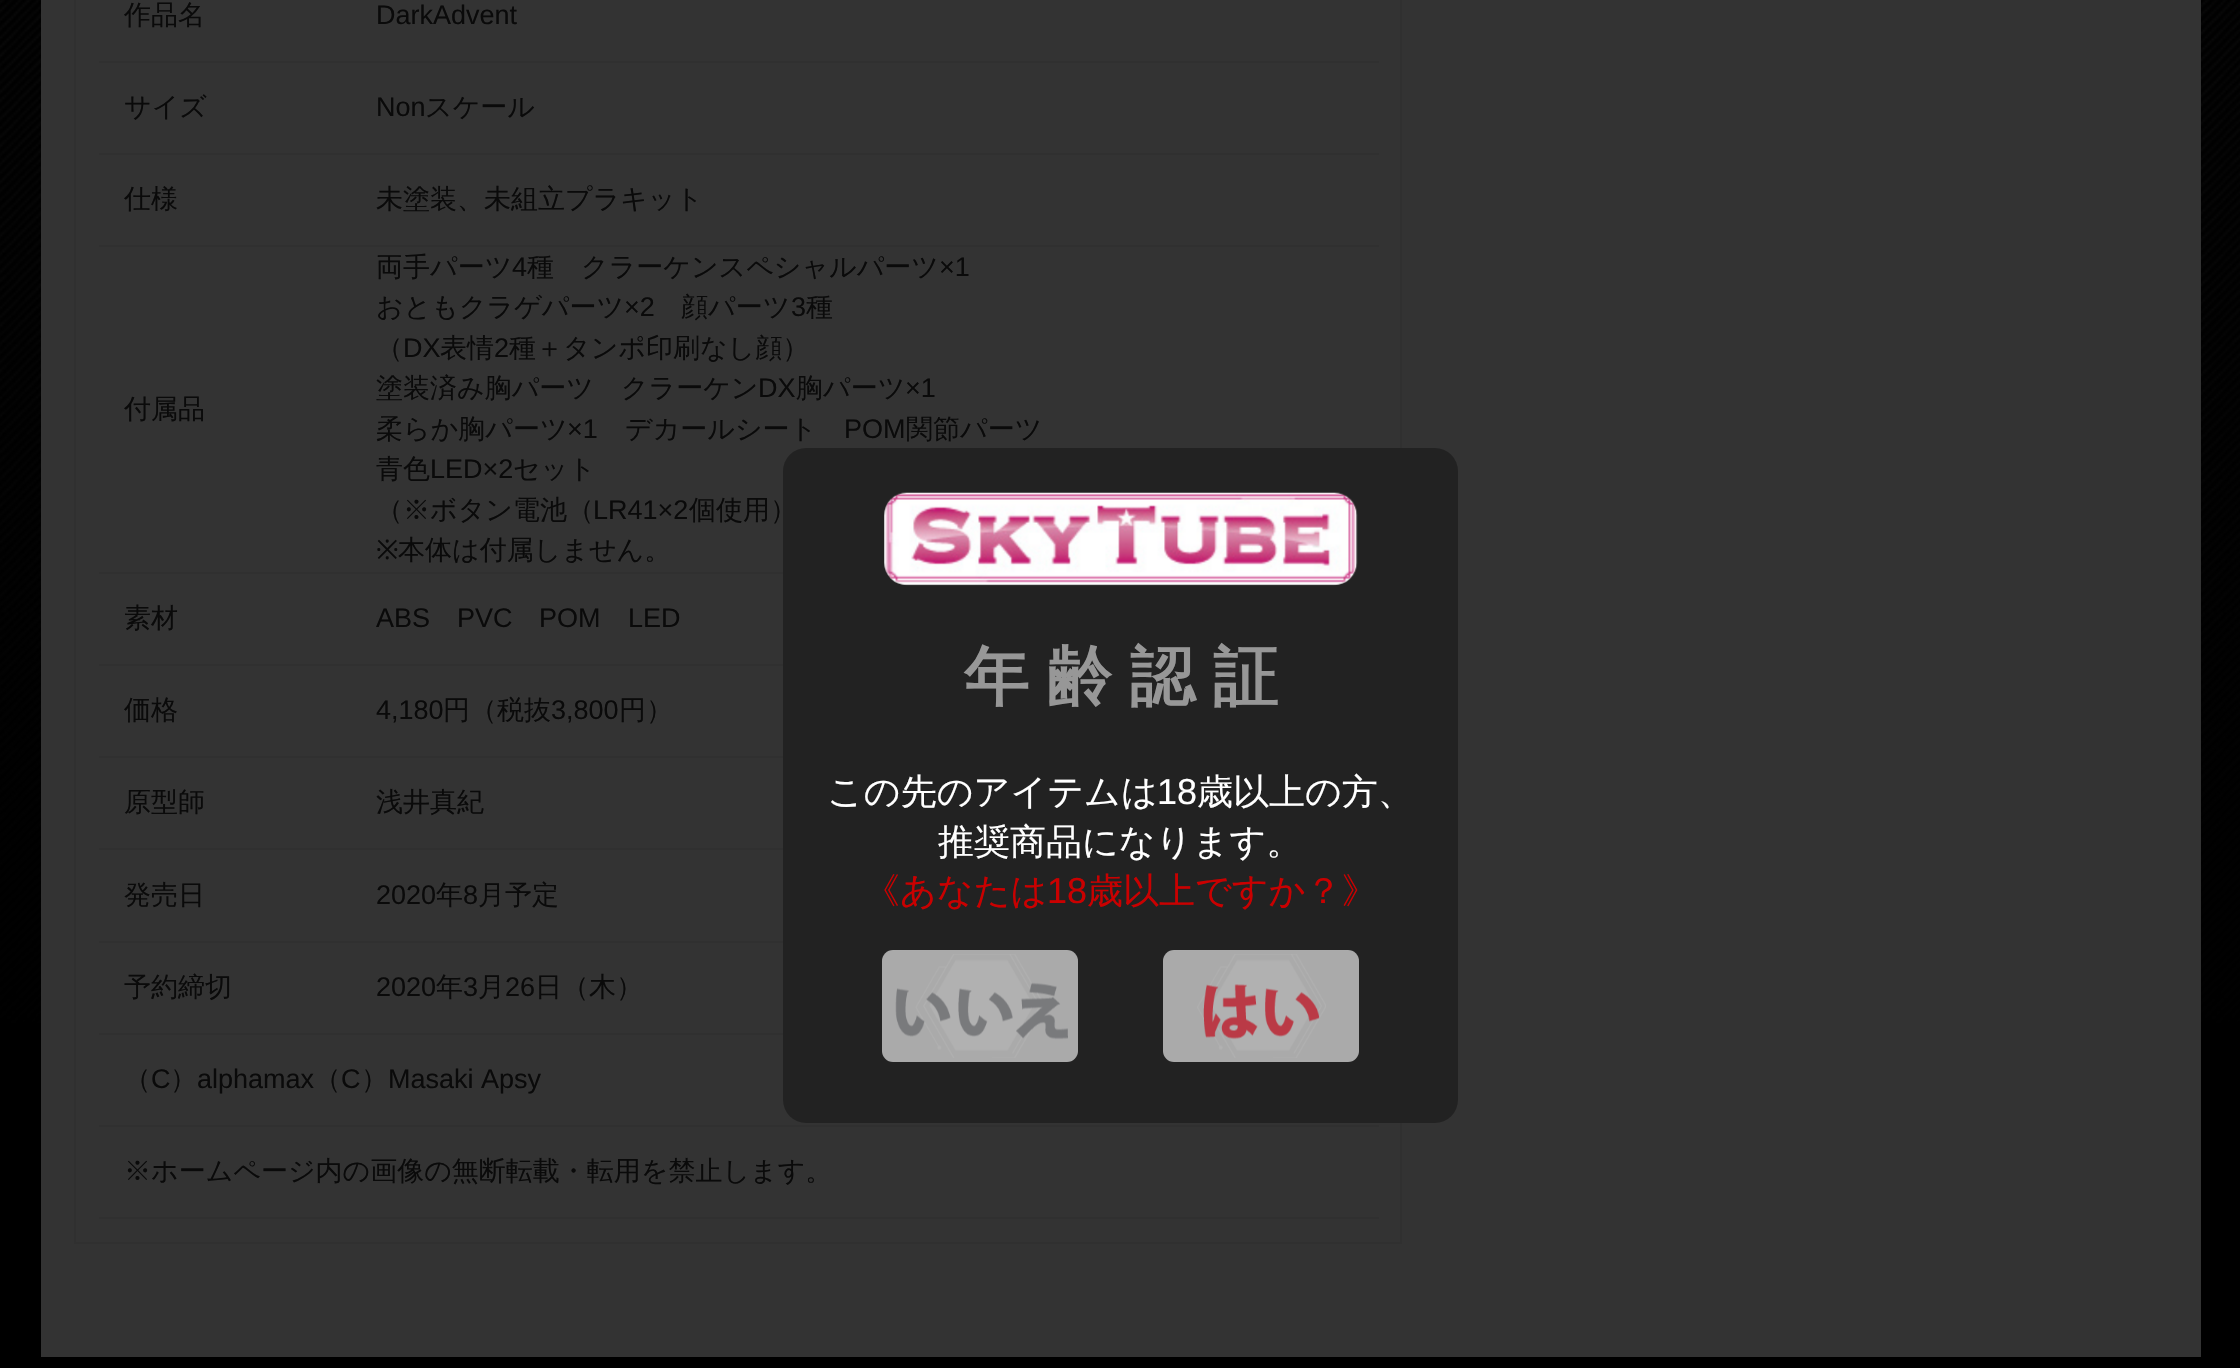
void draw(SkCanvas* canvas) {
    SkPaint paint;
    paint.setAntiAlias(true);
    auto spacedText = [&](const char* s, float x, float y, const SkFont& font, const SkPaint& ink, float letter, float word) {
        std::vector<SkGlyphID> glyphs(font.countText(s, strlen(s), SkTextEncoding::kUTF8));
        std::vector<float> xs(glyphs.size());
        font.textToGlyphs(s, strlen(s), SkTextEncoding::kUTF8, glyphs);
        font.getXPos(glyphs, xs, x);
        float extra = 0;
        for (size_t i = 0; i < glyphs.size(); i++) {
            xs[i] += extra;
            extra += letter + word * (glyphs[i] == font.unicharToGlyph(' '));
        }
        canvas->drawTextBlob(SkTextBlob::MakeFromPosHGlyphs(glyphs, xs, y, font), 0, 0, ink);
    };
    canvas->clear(0xFF000000);
    canvas->drawImageRect(SkImages::DeferredFromEncodedData(SkData::MakeFromFileName("img1.png")), SkRect::MakeXYWH(0, 0, 2240, 1023), SkSamplingOptions());
    paint.setColor(0xFF333333);
    canvas->drawRect(SkRect::MakeXYWH(41, 0, 2160, 1357), paint);
    paint.setStyle(SkPaint::kStroke_Style);
    paint.setStrokeWidth(2);
    paint.setColor(0xFF303030);
    canvas->drawRect(SkRect::MakeXYWH(75, -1, 1326, 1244), paint);
    paint.setStyle(SkPaint::kFill_Style);
    canvas->drawRect(SkRect::MakeXYWH(99, 61, 1280, 2), paint);
    SkFont font1(fontMgr->matchFamilyStyle("WenQuanYi Zen Hei", SkFontStyle(500, SkFontStyle::kNormal_Width, SkFontStyle::kUpright_Slant)), 27);
    font1.setSubpixel(true);
    paint.setColor(0xFF0A0A0A);
    canvas->drawString("作品名", 124, 24, font1, paint);
    SkFont font2(fontMgr->matchFamilyStyle("Liberation Sans", SkFontStyle::Normal()), 27);
    font2.setSubpixel(true);
    canvas->drawString("DarkAdvent", 376, 24, font2, paint);
    paint.setColor(0xFF303030);
    canvas->drawRect(SkRect::MakeXYWH(99, 153, 1280, 2), paint);
    paint.setColor(0xFF0A0A0A);
    canvas->drawString("サイズ", 124, 116, font1, paint);
    canvas->drawString("Non", 376, 116, font2, paint);
    canvas->drawString("スケール", 425, 116, font1, paint);
    paint.setColor(0xFF303030);
    canvas->drawRect(SkRect::MakeXYWH(99, 245, 1280, 2), paint);
    paint.setColor(0xFF0A0A0A);
    canvas->drawString("仕様", 124, 208, font1, paint);
    canvas->drawString("未塗装、未組立プラキット", 376, 208, font1, paint);
    paint.setColor(0xFF303030);
    canvas->drawRect(SkRect::MakeXYWH(99, 572, 684, 2), paint);
    paint.setColor(0xFF0A0A0A);
    canvas->drawString("付属品", 124, 418, font1, paint);
    canvas->drawString("両手パーツ", 376, 276, font1, paint);
    canvas->drawString("4", 512, 276, font2, paint);
    canvas->drawString("種　クラーケンスペシャルパーツ", 527, 276, font1, paint);
    canvas->drawString("×1", 939, 276, font2, paint);
    canvas->drawString("おともクラゲパーツ", 376, 316, font1, paint);
    canvas->drawString("×2", 624, 316, font2, paint);
    canvas->drawString("顔パーツ", 681, 316, font1, paint);
    canvas->drawString("3", 791, 316, font2, paint);
    canvas->drawString("種", 806, 316, font1, paint);
    canvas->drawString("（", 376, 357, font1, paint);
    canvas->drawString("DX", 403, 357, font2, paint);
    canvas->drawString("表情", 440, 357, font1, paint);
    canvas->drawString("2", 494, 357, font2, paint);
    canvas->drawString("種＋タンポ印刷なし顔）", 509, 357, font1, paint);
    canvas->drawString("塗装済み胸パーツ　クラーケン", 376, 397, font1, paint);
    canvas->drawString("DX", 758, 397, font2, paint);
    canvas->drawString("胸パーツ", 796, 397, font1, paint);
    canvas->drawString("×1", 905, 397, font2, paint);
    canvas->drawString("柔らか胸パーツ", 376, 438, font1, paint);
    canvas->drawString("×1", 567, 438, font2, paint);
    canvas->drawString("デカールシート", 625, 438, font1, paint);
    canvas->drawString("POM", 844, 438, font2, paint);
    canvas->drawString("関節パーツ", 906, 438, font1, paint);
    canvas->drawString("青色", 376, 478, font1, paint);
    canvas->drawString("LED×2", 430, 478, font2, paint);
    canvas->drawString("セット", 513, 478, font1, paint);
    canvas->drawString("（※ボタン電池（", 376, 519, font1, paint);
    canvas->drawString("LR41×2", 593, 519, font2, paint);
    canvas->drawString("個使用）", 689, 519, font1, paint);
    SkFont font3(fontMgr->matchFamilyStyle("Noto Sans", SkFontStyle::Normal()), 27);
    font3.setSubpixel(true);
    canvas->drawString("※", 376, 559, font3, paint);
    canvas->drawString("本体は付属しません。", 398, 559, font1, paint);
    paint.setColor(0xFF303030);
    canvas->drawRect(SkRect::MakeXYWH(99, 664, 684, 2), paint);
    paint.setColor(0xFF0A0A0A);
    canvas->drawString("素材", 124, 627, font1, paint);
    canvas->drawString("ABS", 376, 627, font2, paint);
    canvas->drawString("PVC", 457, 627, font2, paint);
    canvas->drawString("POM", 539, 627, font2, paint);
    canvas->drawString("LED", 628, 627, font2, paint);
    paint.setColor(0xFF303030);
    canvas->drawRect(SkRect::MakeXYWH(99, 756, 684, 2), paint);
    paint.setColor(0xFF0A0A0A);
    canvas->drawString("価格", 124, 719, font1, paint);
    canvas->drawString("4,180", 376, 719, font2, paint);
    canvas->drawString("円（税抜", 443, 719, font1, paint);
    canvas->drawString("3,800", 551, 719, font2, paint);
    canvas->drawString("円）", 619, 719, font1, paint);
    paint.setColor(0xFF303030);
    canvas->drawRect(SkRect::MakeXYWH(99, 848, 684, 2), paint);
    paint.setColor(0xFF0A0A0A);
    canvas->drawString("原型師", 124, 811, font1, paint);
    canvas->drawString("浅井真紀", 376, 811, font1, paint);
    paint.setColor(0xFF303030);
    canvas->drawRect(SkRect::MakeXYWH(99, 941, 684, 2), paint);
    paint.setColor(0xFF0A0A0A);
    canvas->drawString("発売日", 124, 904, font1, paint);
    canvas->drawString("2020", 376, 904, font2, paint);
    canvas->drawString("年", 436, 904, font1, paint);
    canvas->drawString("8", 463, 904, font2, paint);
    canvas->drawString("月予定", 478, 904, font1, paint);
    paint.setColor(0xFF303030);
    canvas->drawRect(SkRect::MakeXYWH(99, 1033, 684, 2), paint);
    paint.setColor(0xFF0A0A0A);
    canvas->drawString("予約締切", 124, 996, font1, paint);
    canvas->drawString("2020", 376, 996, font2, paint);
    canvas->drawString("年", 436, 996, font1, paint);
    canvas->drawString("3", 463, 996, font2, paint);
    canvas->drawString("月", 478, 996, font1, paint);
    canvas->drawString("26", 505, 996, font2, paint);
    canvas->drawString("日（木）", 535, 996, font1, paint);
    paint.setColor(0xFF303030);
    canvas->drawRect(SkRect::MakeXYWH(99, 1125, 1280, 2), paint);
    paint.setColor(0xFF0A0A0A);
    canvas->drawString("（", 124, 1088, font1, paint);
    canvas->drawString("C", 151, 1088, font2, paint);
    canvas->drawString("）", 170, 1088, font1, paint);
    canvas->drawString("alphamax", 197, 1088, font2, paint);
    canvas->drawString("（", 314, 1088, font1, paint);
    canvas->drawString("C", 341, 1088, font2, paint);
    canvas->drawString("）", 361, 1088, font1, paint);
    canvas->drawString("Masaki Apsy", 388, 1088, font2, paint);
    paint.setColor(0xFF303030);
    canvas->drawRect(SkRect::MakeXYWH(99, 1217, 1280, 2), paint);
    paint.setColor(0xFF0A0A0A);
    canvas->drawString("※ホームページ内の画像の無断転載・転用を禁止します。", 124, 1180, font1, paint);
    paint.setColor(0xFF222222);
    canvas->drawRoundRect(SkRect::MakeXYWH(783, 448, 675, 675), 23, 23, paint);
    canvas->drawImageRect(SkImages::DeferredFromEncodedData(SkData::MakeFromFileName("img2.png")), SkRect::MakeXYWH(884, 492, 474, 94), SkSamplingOptions());
    SkFont font4(fontMgr->matchFamilyStyle("WenQuanYi Zen Hei", SkFontStyle::Bold()), 65);
    font4.setSubpixel(true);
    paint.setColor(0xFF979797);
    spacedText("年 齢 認 証", 964, 699, font4, paint, 0, -1.5f);
    SkFont font5(fontMgr->matchFamilyStyle("WenQuanYi Zen Hei", SkFontStyle(500, SkFontStyle::kNormal_Width, SkFontStyle::kUpright_Slant)), 36);
    font5.setSubpixel(true);
    paint.setColor(0xFFFFFFFF);
    canvas->drawString("この先のアイテムは", 827, 804, font5, paint);
    SkFont font6(fontMgr->matchFamilyStyle("Liberation Sans", SkFontStyle::Normal()), 36);
    font6.setSubpixel(true);
    canvas->drawString("18", 1157, 804, font6, paint);
    canvas->drawString("歳以上の方、", 1197, 804, font5, paint);
    canvas->drawString("推奨商品になります。", 938, 854, font5, paint);
    paint.setColor(0xFFCA0000);
    canvas->drawString("《あなたは", 864, 903, font5, paint);
    canvas->drawString("18", 1047, 903, font6, paint);
    canvas->drawString("歳以上ですか？》", 1087, 903, font5, paint);
    paint.setColor(0xFFAAAAAA);
    canvas->drawRoundRect(SkRect::MakeXYWH(882, 950, 196, 112), 11, 11, paint);
    canvas->drawImageRect(SkImages::DeferredFromEncodedData(SkData::MakeFromFileName("img3.png")), SkRect::MakeXYWH(895, 954, 173, 104), SkSamplingOptions());
    canvas->drawRoundRect(SkRect::MakeXYWH(1163, 950, 196, 112), 11, 11, paint);
    canvas->drawImageRect(SkImages::DeferredFromEncodedData(SkData::MakeFromFileName("img4.png")), SkRect::MakeXYWH(1197, 954, 129, 104), SkSamplingOptions());
}
